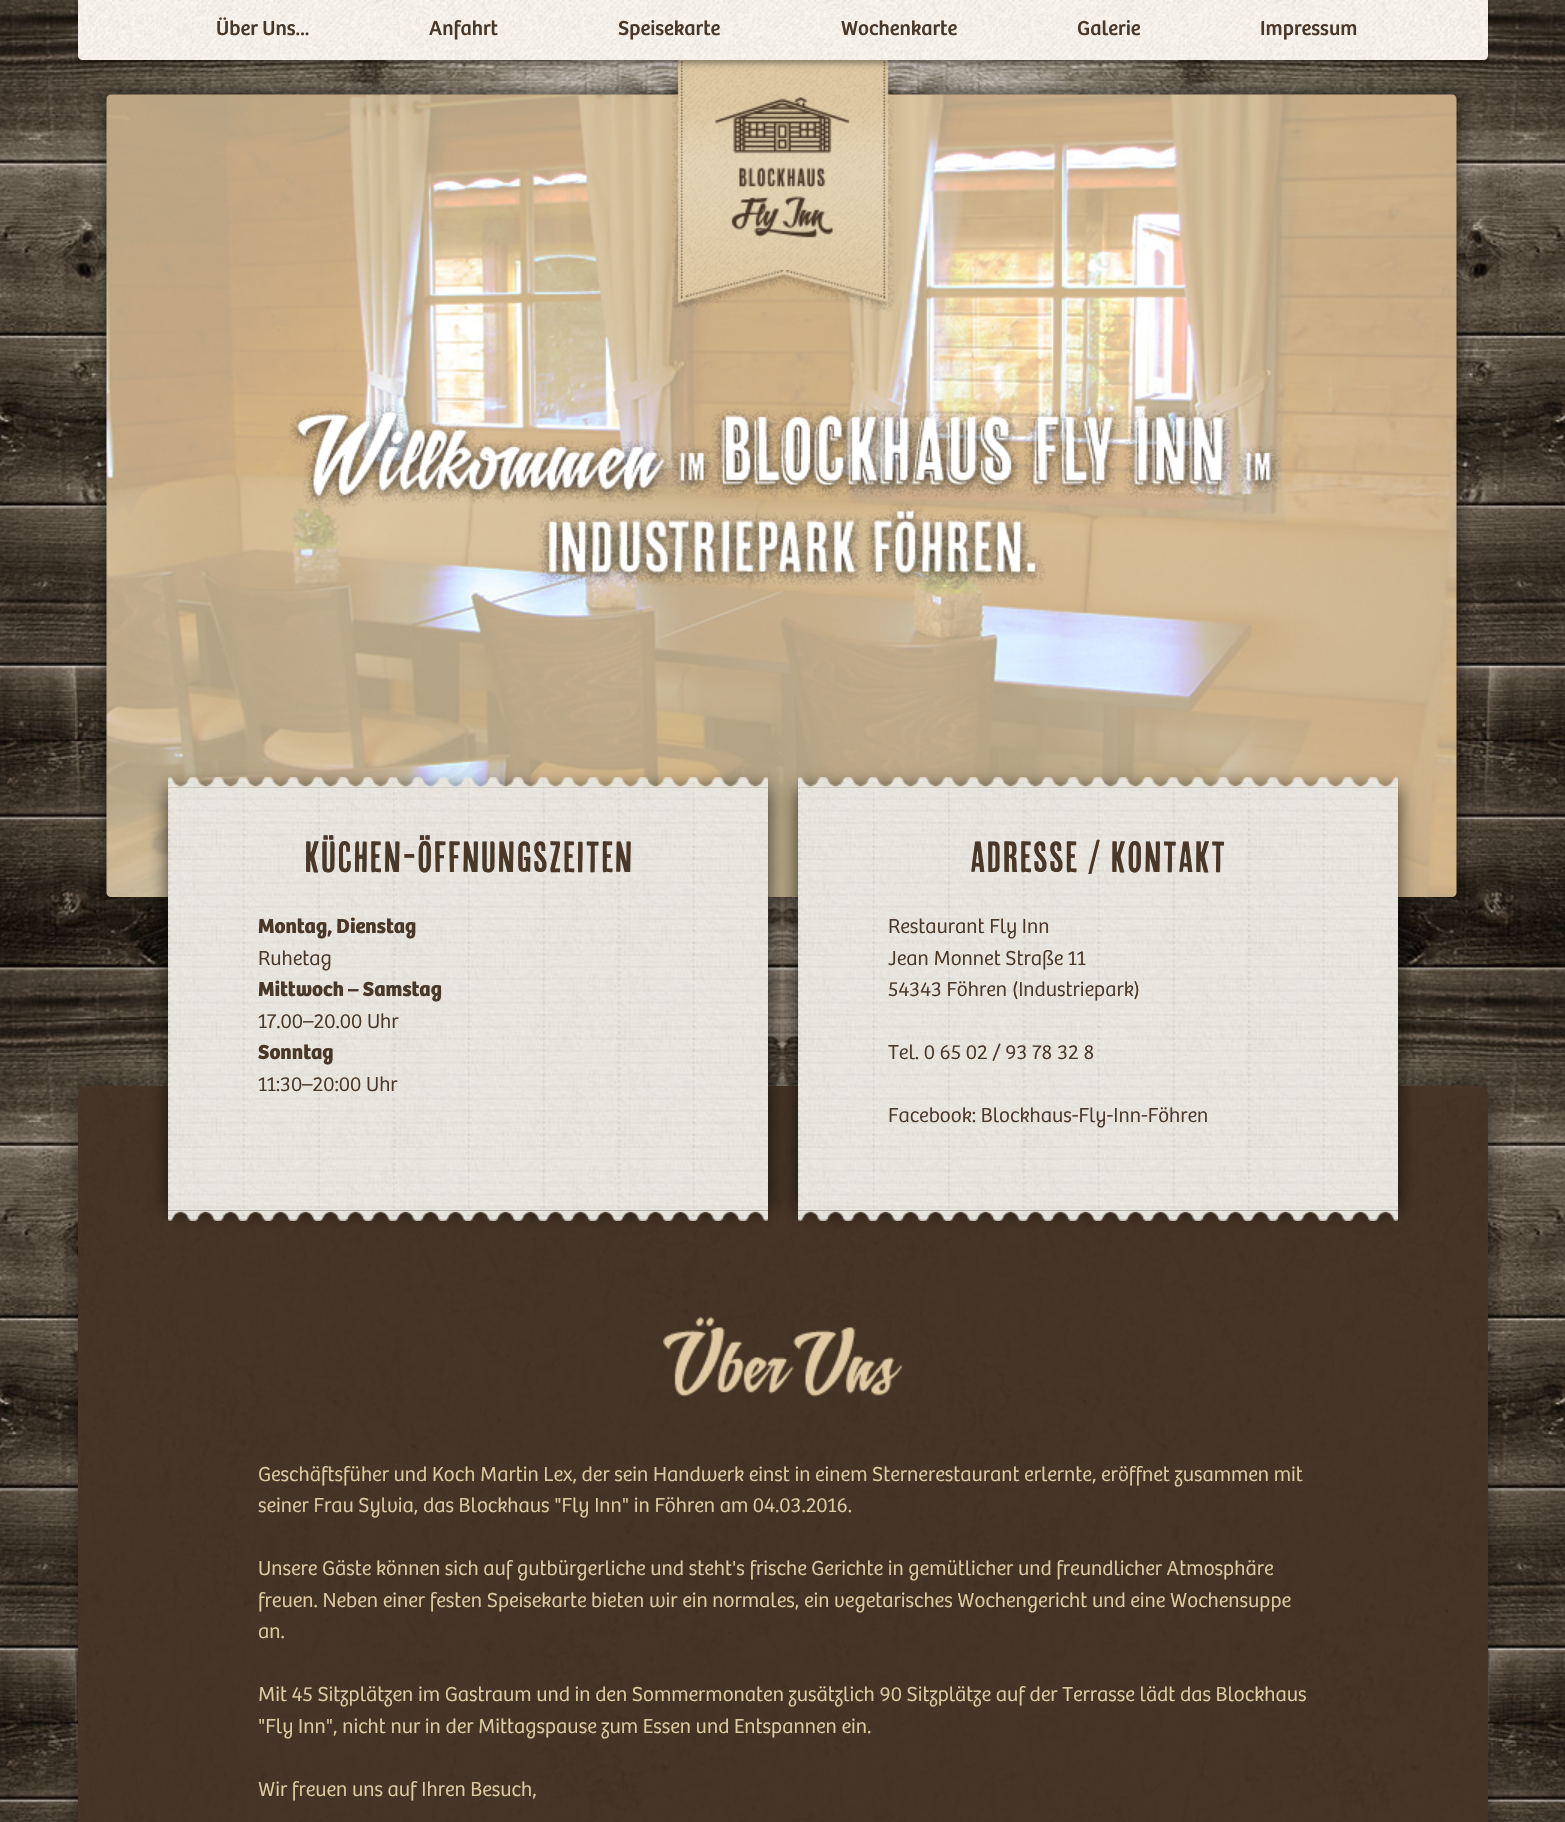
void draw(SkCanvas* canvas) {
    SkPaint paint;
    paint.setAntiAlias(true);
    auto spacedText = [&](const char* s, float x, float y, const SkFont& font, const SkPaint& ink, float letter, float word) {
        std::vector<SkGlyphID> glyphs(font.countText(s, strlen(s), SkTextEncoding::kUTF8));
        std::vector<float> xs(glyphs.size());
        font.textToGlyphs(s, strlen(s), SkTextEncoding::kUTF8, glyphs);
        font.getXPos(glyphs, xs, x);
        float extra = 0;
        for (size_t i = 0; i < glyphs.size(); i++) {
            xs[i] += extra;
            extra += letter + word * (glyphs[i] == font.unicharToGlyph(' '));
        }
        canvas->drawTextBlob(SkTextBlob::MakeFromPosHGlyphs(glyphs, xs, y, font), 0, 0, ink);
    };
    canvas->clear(0xFFFFFFFF);
    canvas->drawImageRect(SkImages::DeferredFromEncodedData(SkData::MakeFromFileName("img1.png")), SkRect::MakeXYWH(0, 0, 1565, 1822), SkSamplingOptions());
    paint.setColor(0xB3000000);
    paint.setMaskFilter(SkMaskFilter::MakeBlur(kNormal_SkBlurStyle, 9));
    canvas->drawRoundRect(SkRect::MakeXYWH(107, 95, 1350, 802), 5, 5, paint);
    paint.setMaskFilter(nullptr);
    canvas->drawImageRect(SkImages::DeferredFromEncodedData(SkData::MakeFromFileName("img4.png")), SkRect::MakeXYWH(106, 94, 1351, 803), SkSamplingOptions());
    canvas->drawImageRect(SkImages::DeferredFromEncodedData(SkData::MakeFromFileName("img3.png")), SkRect::MakeXYWH(672, 60, 222, 252), SkSamplingOptions());
    paint.setColor(0x66000000);
    paint.setMaskFilter(SkMaskFilter::MakeBlur(kNormal_SkBlurStyle, 3));
    canvas->drawRoundRect(SkRect::MakeXYWH(81, 9, 1404, 54), 1.5f, 1.5f, paint);
    paint.setMaskFilter(nullptr);
    canvas->drawImageRect(SkImages::DeferredFromEncodedData(SkData::MakeFromFileName("img2.png")), SkRect::MakeXYWH(78, 0, 1410, 60), SkSamplingOptions());
    SkFont font1(fontMgr->matchFamilyStyle("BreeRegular", SkFontStyle::Normal()), 21);
    font1.setSubpixel(true);
    paint.setColor(0xFF493728);
    canvas->drawString("Über Uns...", 216, 35, font1, paint);
    canvas->drawString("Anfahrt", 429, 35, font1, paint);
    canvas->drawString("Speisekarte", 618, 35, font1, paint);
    canvas->drawString("Wochenkarte", 841, 35, font1, paint);
    canvas->drawString("Galerie", 1077, 35, font1, paint);
    canvas->drawString("Impressum", 1260, 35, font1, paint);
    canvas->drawImageRect(SkImages::DeferredFromEncodedData(SkData::MakeFromFileName("img5.png")), SkRect::MakeXYWH(288, 405, 993, 181), SkSamplingOptions());
    paint.setColor(0x80000000);
    paint.setMaskFilter(SkMaskFilter::MakeBlur(kNormal_SkBlurStyle, 9));
    canvas->drawRoundRect(SkRect::MakeXYWH(78, 1086, 1410, 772), 9, 9, paint);
    paint.setMaskFilter(nullptr);
    canvas->drawImageRect(SkImages::DeferredFromEncodedData(SkData::MakeFromFileName("img12.png")), SkRect::MakeXYWH(78, 1086, 1410, 736), SkSamplingOptions());
    paint.setColor(0xB3000000);
    paint.setMaskFilter(SkMaskFilter::MakeBlur(kNormal_SkBlurStyle, 9));
    canvas->drawRect(SkRect::MakeXYWH(168, 788, 600, 423), paint);
    paint.setMaskFilter(nullptr);
    canvas->drawImageRect(SkImages::DeferredFromEncodedData(SkData::MakeFromFileName("img6.png")), SkRect::MakeXYWH(168, 787, 600, 424), SkSamplingOptions());
    canvas->drawImageRect(SkImages::DeferredFromEncodedData(SkData::MakeFromFileName("img7.png")), SkRect::MakeXYWH(168, 777, 600, 11), SkSamplingOptions());
    SkFont font2(fontMgr->matchFamilyStyle("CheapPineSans", SkFontStyle::Normal()), 43.5f);
    font2.setSubpixel(true);
    paint.setColor(0xFF493728);
    spacedText("KÜCHEN-ÖFFNUNGSZEITEN", 304, 872, font2, paint, 0.6f, 0);
    SkFont font3(fontMgr->matchFamilyStyle("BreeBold", SkFontStyle::Bold()), 21);
    font3.setSubpixel(true);
    canvas->drawString("Montag, Dienstag", 258, 933, font3, paint);
    SkFont font4(fontMgr->matchFamilyStyle("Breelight", SkFontStyle(300, SkFontStyle::kNormal_Width, SkFontStyle::kUpright_Slant)), 21);
    font4.setSubpixel(true);
    canvas->drawString("Ruhetag", 258, 965, font4, paint);
    canvas->drawString("Mittwoch – Samstag", 258, 996, font3, paint);
    canvas->drawString("17.00–20.00 Uhr", 258, 1028, font4, paint);
    canvas->drawString("Sonntag", 258, 1059, font3, paint);
    canvas->drawString("11:30–20:00 Uhr", 258, 1091, font4, paint);
    canvas->drawImageRect(SkImages::DeferredFromEncodedData(SkData::MakeFromFileName("img8.png")), SkRect::MakeXYWH(168, 1210, 600, 11), SkSamplingOptions());
    paint.setColor(0xB3000000);
    paint.setMaskFilter(SkMaskFilter::MakeBlur(kNormal_SkBlurStyle, 9));
    canvas->drawRect(SkRect::MakeXYWH(798, 788, 600, 423), paint);
    paint.setMaskFilter(nullptr);
    canvas->drawImageRect(SkImages::DeferredFromEncodedData(SkData::MakeFromFileName("img9.png")), SkRect::MakeXYWH(798, 787, 600, 424), SkSamplingOptions());
    canvas->drawImageRect(SkImages::DeferredFromEncodedData(SkData::MakeFromFileName("img10.png")), SkRect::MakeXYWH(798, 777, 600, 11), SkSamplingOptions());
    paint.setColor(0xFF493728);
    spacedText("ADRESSE / KONTAKT", 970, 872, font2, paint, 0.6f, 0);
    canvas->drawString("Restaurant Fly Inn", 888, 933, font4, paint);
    canvas->drawString("Jean Monnet Straße 11", 888, 965, font4, paint);
    canvas->drawString("54343 Föhren (Industriepark)", 888, 996, font4, paint);
    canvas->drawString("Tel. 0 65 02 / 93 78 32 8", 888, 1059, font4, paint);
    canvas->drawString("Facebook: Blockhaus-Fly-Inn-Föhren", 888, 1122, font4, paint);
    canvas->drawImageRect(SkImages::DeferredFromEncodedData(SkData::MakeFromFileName("img11.png")), SkRect::MakeXYWH(798, 1210, 600, 11), SkSamplingOptions());
    canvas->drawImageRect(SkImages::DeferredFromEncodedData(SkData::MakeFromFileName("img13.png")), SkRect::MakeXYWH(663, 1317, 240, 80), SkSamplingOptions());
    paint.setColor(0xFFDFCAA3);
    canvas->drawString("Geschäftsfüher und Koch Martin Lex, der sein Handwerk einst in einem Sternerestaurant erlernte, eröffnet zusammen mit", 258, 1481, font4, paint);
    canvas->drawString("seiner Frau Sylvia, das Blockhaus \"Fly Inn\" in Föhren am 04.03.2016.", 258, 1512, font4, paint);
    canvas->drawString("Unsere Gäste können sich auf gutbürgerliche und steht's frische Gerichte in gemütlicher und freundlicher Atmosphäre", 258, 1575, font4, paint);
    canvas->drawString("freuen. Neben einer festen Speisekarte bieten wir ein normales, ein vegetarisches Wochengericht und eine Wochensuppe", 258, 1607, font4, paint);
    canvas->drawString("an.", 258, 1638, font4, paint);
    canvas->drawString("Mit 45 Sitzplätzen im Gastraum und in den Sommermonaten zusätzlich 90 Sitzplätze auf der Terrasse lädt das Blockhaus", 258, 1701, font4, paint);
    canvas->drawString("\"Fly Inn\", nicht nur in der Mittagspause zum Essen und Entspannen ein.", 258, 1733, font4, paint);
    canvas->drawString("Wir freuen uns auf Ihren Besuch,", 258, 1796, font4, paint);
}
